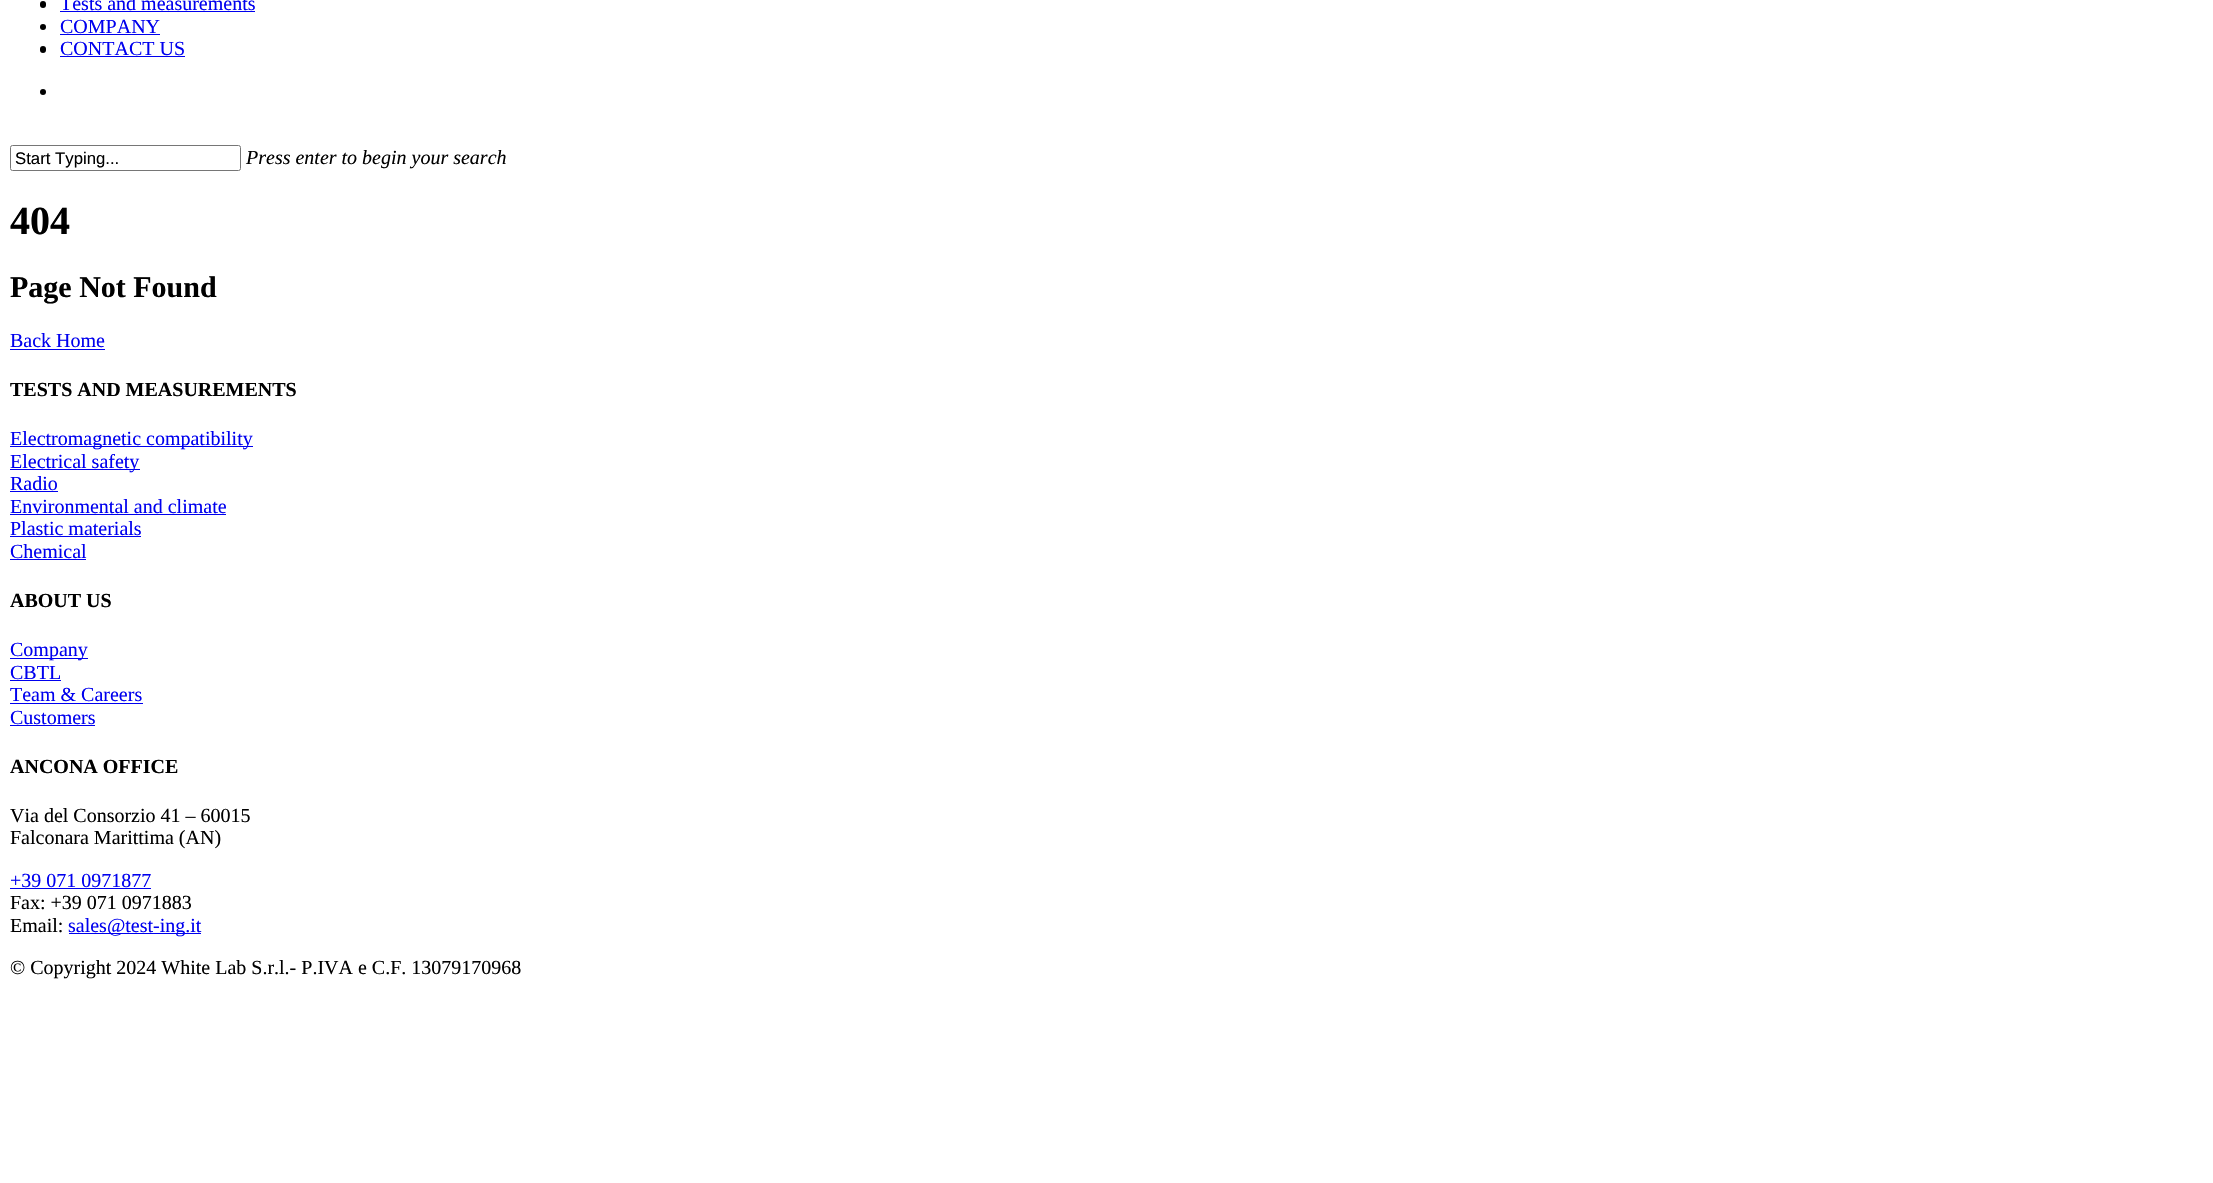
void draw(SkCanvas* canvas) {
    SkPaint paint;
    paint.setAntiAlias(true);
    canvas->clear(0xFFFFFFFF);
    paint.setColor(0xFF000000);
    canvas->drawRoundRect(SkRect::MakeXYWH(40, 1, 6, 7), 3, 3, paint);
    SkFont font1(fontMgr->matchFamilyStyle("Liberation Serif", SkFontStyle::Normal()), 20);
    font1.setSubpixel(true);
    paint.setColor(0xFF0000EE);
    canvas->drawString("Tests and measurements", 60, 10, font1, paint);
    canvas->drawRect(SkRect::MakeXYWH(60, 11, 195, 1), paint);
    paint.setColor(0xFF000000);
    canvas->drawCircle(43, 27, 3, paint);
    paint.setColor(0xFF0000EE);
    canvas->drawString("COMPANY", 60, 33, font1, paint);
    canvas->drawRect(SkRect::MakeXYWH(60, 34, 100, 1), paint);
    paint.setColor(0xFF000000);
    canvas->drawRoundRect(SkRect::MakeXYWH(40, 46, 6, 7), 3, 3, paint);
    paint.setColor(0xFF0000EE);
    canvas->drawString("CONTACT US", 60, 55, font1, paint);
    canvas->drawRect(SkRect::MakeXYWH(60, 56, 125, 1), paint);
    paint.setColor(0xFF000000);
    canvas->drawCircle(43, 92, 3, paint);
    paint.setStyle(SkPaint::kStroke_Style);
    paint.setStrokeWidth(1);
    paint.setColor(0xFF767676);
    canvas->drawRoundRect(SkRect::MakeXYWH(10.5f, 145.5f, 230, 25), 2, 2, paint);
    SkFont font2(fontMgr->matchFamilyStyle("Liberation Sans", SkFontStyle::Normal()), 16.75f);
    font2.setSubpixel(true);
    paint.setStyle(SkPaint::kFill_Style);
    paint.setColor(0xFF000000);
    canvas->drawString("Start Typing...", 15, 164, font2, paint);
    SkFont font3(fontMgr->matchFamilyStyle("Liberation Serif", SkFontStyle::Italic()), 20);
    font3.setSubpixel(true);
    canvas->drawString("Press enter to begin your search", 246, 164, font3, paint);
    SkFont font4(fontMgr->matchFamilyStyle("Liberation Serif", SkFontStyle::Bold()), 40);
    font4.setSubpixel(true);
    canvas->drawString("404", 10, 234, font4, paint);
    SkFont font5(fontMgr->matchFamilyStyle("Liberation Serif", SkFontStyle::Bold()), 30);
    font5.setSubpixel(true);
    canvas->drawString("Page Not Found", 10, 297, font5, paint);
    paint.setColor(0xFF0000EE);
    canvas->drawString("Back Home", 10, 347, font1, paint);
    canvas->drawRect(SkRect::MakeXYWH(10, 349, 95, 1), paint);
    SkFont font6(fontMgr->matchFamilyStyle("Liberation Serif", SkFontStyle::Bold()), 20);
    font6.setSubpixel(true);
    paint.setColor(0xFF000000);
    canvas->drawString("TESTS AND MEASUREMENTS", 10, 396, font6, paint);
    paint.setColor(0xFF0000EE);
    canvas->drawRect(SkRect::MakeXYWH(10, 446, 243, 1), paint);
    canvas->drawString("Electromagnetic compatibility", 10, 445, font1, paint);
    canvas->drawRect(SkRect::MakeXYWH(10, 469, 130, 1), paint);
    canvas->drawString("Electrical safety", 10, 468, font1, paint);
    canvas->drawString("Radio", 10, 490, font1, paint);
    canvas->drawRect(SkRect::MakeXYWH(10, 491, 48, 1), paint);
    canvas->drawString("Environmental and climate", 10, 513, font1, paint);
    canvas->drawRect(SkRect::MakeXYWH(10, 514, 216, 1), paint);
    canvas->drawString("Plastic materials", 10, 535, font1, paint);
    canvas->drawRect(SkRect::MakeXYWH(10, 536, 131, 1), paint);
    canvas->drawString("Chemical", 10, 558, font1, paint);
    canvas->drawRect(SkRect::MakeXYWH(10, 559, 76, 1), paint);
    paint.setColor(0xFF000000);
    canvas->drawString("ABOUT US", 10, 607, font6, paint);
    paint.setColor(0xFF0000EE);
    canvas->drawRect(SkRect::MakeXYWH(10, 658, 78, 1), paint);
    canvas->drawString("Company", 10, 656, font1, paint);
    canvas->drawString("CBTL", 10, 679, font1, paint);
    canvas->drawRect(SkRect::MakeXYWH(10, 680, 51, 1), paint);
    canvas->drawString("Team & Careers", 10, 701, font1, paint);
    canvas->drawRect(SkRect::MakeXYWH(10, 703, 133, 1), paint);
    canvas->drawString("Customers", 10, 724, font1, paint);
    canvas->drawRect(SkRect::MakeXYWH(10, 725, 85, 1), paint);
    paint.setColor(0xFF000000);
    canvas->drawString("ANCONA OFFICE", 10, 773, font6, paint);
    canvas->drawString("Via del Consorzio 41 – 60015", 10, 822, font1, paint);
    canvas->drawString("Falconara Marittima (AN)", 10, 844, font1, paint);
    paint.setColor(0xFF0000EE);
    canvas->drawString("+39 071 0971877", 10, 887, font1, paint);
    canvas->drawRect(SkRect::MakeXYWH(10, 888, 141, 1), paint);
    paint.setColor(0xFF000000);
    canvas->drawString("Fax: +39 071 0971883", 10, 909, font1, paint);
    canvas->drawString("Email:", 10, 932, font1, paint);
    paint.setColor(0xFF0000EE);
    canvas->drawRect(SkRect::MakeXYWH(69, 933, 132, 1), paint);
    canvas->drawString("sales@test-ing.it", 68, 932, font1, paint);
    paint.setColor(0xFF000000);
    canvas->drawString("© Copyright 2024 White Lab S.r.l.- P.IVA e C.F. 13079170968", 10, 974, font1, paint);
}
